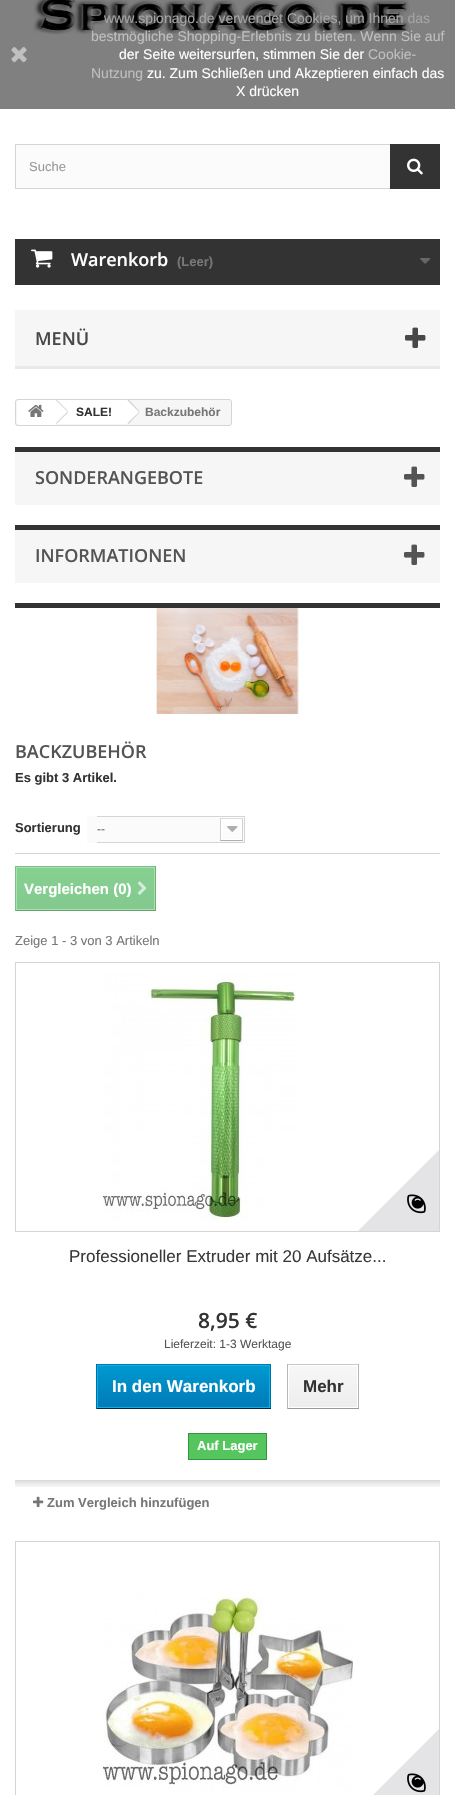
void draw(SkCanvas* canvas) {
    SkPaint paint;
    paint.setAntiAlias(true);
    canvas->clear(0xFFFFFFFF);
    paint.setColor(0xFF808080);
    canvas->drawRect(SkRect::MakeXYWH(0, 0, 455, 109), paint);
    canvas->drawImageRect(SkImages::DeferredFromEncodedData(SkData::MakeFromFileName("img1.png")), SkRect::MakeXYWH(11, 47, 16, 16), SkSamplingOptions());
    canvas->drawImageRect(SkImages::DeferredFromEncodedData(SkData::MakeFromFileName("img2.png")), SkRect::MakeXYWH(33, 0, 377, 35), SkSamplingOptions());
    SkFont font1(fontMgr->matchFamilyStyle("Liberation Sans", SkFontStyle::Normal()), 14);
    font1.setSubpixel(true);
    paint.setColor(0xFFA4A4A4);
    canvas->drawString("www.spionago.de verwendet Cookies, um Ihnen das", 104, 23, font1, paint);
    paint.setColor(0xFFBFBFBF);
    canvas->drawString("bestmögliche Shopping-Erlebnis zu bieten. Wenn Sie auf", 91, 41, font1, paint);
    paint.setColor(0xFFFFFFFF);
    canvas->drawString("der Seite weitersurfen, stimmen Sie der", 119, 59, font1, paint);
    paint.setColor(0xFFBFBFBF);
    canvas->drawString("Cookie-", 368, 59, font1, paint);
    canvas->drawString("Nutzung", 91, 78, font1, paint);
    paint.setColor(0xFFFFFFFF);
    canvas->drawString("zu. Zum Schließen und Akzeptieren einfach das", 147, 78, font1, paint);
    canvas->drawString("X drücken", 236, 96, font1, paint);
    paint.setColor(0xFFFBFBFB);
    canvas->drawRect(SkRect::MakeXYWH(16, 145, 374, 43), paint);
    paint.setStyle(SkPaint::kStroke_Style);
    paint.setStrokeWidth(1);
    paint.setColor(0xFFD6D4D4);
    canvas->drawRect(SkRect::MakeXYWH(15.5f, 144.5f, 424, 44), paint);
    SkFont font2(fontMgr->matchFamilyStyle("Liberation Sans", SkFontStyle::Normal()), 13);
    font2.setSubpixel(true);
    paint.setStyle(SkPaint::kFill_Style);
    paint.setColor(0xFF999999);
    canvas->drawString("Suche", 29, 171, font2, paint);
    paint.setColor(0xFF333333);
    canvas->drawRect(SkRect::MakeXYWH(390, 144, 50, 45), paint);
    canvas->drawImageRect(SkImages::DeferredFromEncodedData(SkData::MakeFromFileName("img3.png")), SkRect::MakeXYWH(407, 158, 16, 17), SkSamplingOptions());
    canvas->drawRect(SkRect::MakeXYWH(15, 239, 425, 46), paint);
    canvas->drawImageRect(SkImages::DeferredFromEncodedData(SkData::MakeFromFileName("img4.png")), SkRect::MakeXYWH(31, 249, 22, 19), SkSamplingOptions());
    SkFont font3(fontMgr->matchFamilyStyle("Open Sans", SkFontStyle(600, SkFontStyle::kNormal_Width, SkFontStyle::kUpright_Slant)), 18);
    font3.setSubpixel(true);
    paint.setColor(0xFFFFFFFF);
    canvas->drawString("Warenkorb", 71, 266, font3, paint);
    SkFont font4(fontMgr->matchFamilyStyle("Liberation Sans", SkFontStyle::Bold()), 13);
    font4.setSubpixel(true);
    paint.setColor(0xFF777777);
    canvas->drawString("(Leer)", 177, 266, font4, paint);
    canvas->drawImageRect(SkImages::DeferredFromEncodedData(SkData::MakeFromFileName("img5.png")), SkRect::MakeXYWH(420, 258, 11, 6), SkSamplingOptions());
    paint.setColor(0xFFF6F6F6);
    canvas->drawRect(SkRect::MakeXYWH(15, 310, 425, 56), paint);
    paint.setColor(0xFFE9E9E9);
    canvas->drawRect(SkRect::MakeXYWH(15, 366, 425, 3), paint);
    paint.setColor(0xFF484848);
    canvas->drawString("MENÜ", 35, 345, font3, paint);
    canvas->drawImageRect(SkImages::DeferredFromEncodedData(SkData::MakeFromFileName("img6.png")), SkRect::MakeXYWH(405, 327, 21, 21), SkSamplingOptions());
    paint.setColor(0xFFF6F6F6);
    canvas->drawRoundRect(SkRect::MakeXYWH(15.5f, 399.5f, 216, 26), 2.5f, 2.5f, paint);
    paint.setStyle(SkPaint::kStroke_Style);
    paint.setColor(0xFFD6D4D4);
    canvas->drawRoundRect(SkRect::MakeXYWH(15.5f, 399.5f, 216, 26), 2.5f, 2.5f, paint);
    paint.setStyle(SkPaint::kFill_Style);
    paint.setColor(0xFFFFFFFF);
    canvas->drawPath(SkPathBuilder().moveTo(20, 400).lineTo(55, 400).lineTo(55, 425).lineTo(20, 425).cubicTo(18.5f, 425, 17, 423.5f, 17, 422).lineTo(17, 403).cubicTo(17, 401.5f, 18.5f, 400, 20, 400).close().detach(), paint);
    canvas->drawImageRect(SkImages::DeferredFromEncodedData(SkData::MakeFromFileName("img7.png")), SkRect::MakeXYWH(28, 404, 16, 13), SkSamplingOptions());
    canvas->drawRect(SkRect::MakeXYWH(55, 400, 72, 24), paint);
    canvas->drawPath(SkPathBuilder().moveTo(57.5f, 400.5f).lineTo(67.5f, 410.5f).cubicTo(68, 411, 68, 412.5f, 67.5f, 413).lineTo(57.5f, 423).cubicTo(56.5f, 424, 55.5f, 424, 54.5f, 423).lineTo(44.5f, 413).cubicTo(44, 412.5f, 44, 411, 44.5f, 410.5f).lineTo(54.5f, 400.5f).cubicTo(55.5f, 399.5f, 56.5f, 399.5f, 57.5f, 400.5f).close().detach(), paint);
    paint.setColor(0xFFD6D4D4);
    canvas->drawPath(SkPathBuilder().moveTo(56.5f, 399.5f).lineTo(68, 411).lineTo(67.5f, 411.5f).lineTo(56, 400.5f).close().detach(), paint);
    canvas->drawPath(SkPathBuilder().moveTo(67.5f, 411.5f).lineTo(68, 412.5f).lineTo(56.5f, 424).lineTo(56, 423).close().detach(), paint);
    SkFont font5(fontMgr->matchFamilyStyle("Liberation Sans", SkFontStyle::Bold()), 12);
    font5.setSubpixel(true);
    paint.setColor(0xFF333333);
    canvas->drawString("SALE!", 76, 416, font5, paint);
    paint.setColor(0xFFFFFFFF);
    canvas->drawPath(SkPathBuilder().moveTo(129, 400.5f).lineTo(139, 410.5f).cubicTo(140, 411, 140, 412.5f, 139, 413).lineTo(129, 423).cubicTo(128.5f, 424, 127, 424, 126.5f, 423).lineTo(116.5f, 413).cubicTo(115.5f, 412.5f, 115.5f, 411, 116.5f, 410.5f).lineTo(126.5f, 400.5f).cubicTo(127, 399.5f, 128.5f, 399.5f, 129, 400.5f).close().detach(), paint);
    paint.setColor(0xFFD6D4D4);
    canvas->drawPath(SkPathBuilder().moveTo(128.5f, 399.5f).lineTo(139.5f, 411).lineTo(139, 412).lineTo(127.5f, 400.5f).close().moveTo(139, 412).lineTo(139.5f, 412.5f).lineTo(128.5f, 424).lineTo(127.5f, 423).close().detach(), paint);
    paint.setColor(0xFF777777);
    canvas->drawString("Backzubehör", 145, 416, font5, paint);
    paint.setColor(0xFFF6F6F6);
    canvas->drawRect(SkRect::MakeXYWH(15, 452, 425, 53), paint);
    paint.setColor(0xFF333333);
    canvas->drawRect(SkRect::MakeXYWH(15, 447, 425, 5), paint);
    paint.setColor(0xFF555454);
    canvas->drawString("SONDERANGEBOTE", 35, 484, font3, paint);
    canvas->drawImageRect(SkImages::DeferredFromEncodedData(SkData::MakeFromFileName("img8.png")), SkRect::MakeXYWH(404, 466, 21, 21), SkSamplingOptions());
    paint.setColor(0xFFF6F6F6);
    canvas->drawRect(SkRect::MakeXYWH(15, 530, 425, 53), paint);
    paint.setColor(0xFF333333);
    canvas->drawRect(SkRect::MakeXYWH(15, 525, 425, 5), paint);
    paint.setColor(0xFF555454);
    canvas->drawString("INFORMATIONEN", 35, 562, font3, paint);
    canvas->drawImageRect(SkImages::DeferredFromEncodedData(SkData::MakeFromFileName("img8.png")), SkRect::MakeXYWH(404, 544, 21, 21), SkSamplingOptions());
    paint.setColor(0xFF333333);
    canvas->drawRect(SkRect::MakeXYWH(15, 603, 425, 5), paint);
    canvas->drawImageRect(SkImages::DeferredFromEncodedData(SkData::MakeFromFileName("img9.png")), SkRect::MakeXYWH(15, 608, 425, 106), SkSamplingOptions());
    paint.setColor(0xFF555454);
    canvas->drawString("BACKZUBEHÖR", 15, 758, font3, paint);
    paint.setColor(0xFF333333);
    canvas->drawString("Es gibt 3 Artikel.", 15, 782, font4, paint);
    paint.setColor(0xFFD6D4D4);
    canvas->drawRect(SkRect::MakeXYWH(15, 853, 425, 1), paint);
    paint.setColor(0xFF333333);
    canvas->drawString("Sortierung", 15, 832, font4, paint);
    paint.setColor(0xFFFBFBFB);
    canvas->drawRect(SkRect::MakeXYWH(87, 816, 10, 27), paint);
    canvas->drawImageRect(SkImages::DeferredFromEncodedData(SkData::MakeFromFileName("img10.png")), SkRect::MakeXYWH(97, 816, 148, 27), SkSamplingOptions());
    SkFont font6(fontMgr->matchFamilyStyle("Liberation Sans", SkFontStyle::Normal()), 12);
    font6.setSubpixel(true);
    paint.setColor(0xFF666666);
    canvas->drawString("--", 97, 833, font6, paint);
    {
        const SkColor colors[] = {0xFF85D090, 0xFF84C98F};
        const float stops[] = {0, 1};
        const SkPoint ends[] = {{86, 867}, {86, 910}};
        paint.setShader(SkGradientShader::MakeLinear(ends, colors, stops, 2, SkTileMode::kClamp));
        paint.setAlpha(255);
    }
    canvas->drawRect(SkRect::MakeXYWH(17, 868, 137, 41), paint);
    paint.setShader(nullptr);
    paint.setColor(0xFF7EBD89);
    canvas->drawRect(SkRect::MakeXYWH(15, 866, 141, 1), paint);
    paint.setColor(0xFF71AC7A);
    canvas->drawRect(SkRect::MakeXYWH(155, 866, 1, 45), paint);
    paint.setColor(0xFF6AA073);
    canvas->drawRect(SkRect::MakeXYWH(15, 910, 141, 1), paint);
    paint.setColor(0xFF7EBD89);
    canvas->drawRect(SkRect::MakeXYWH(15, 866, 1, 45), paint);
    paint.setStyle(SkPaint::kStroke_Style);
    paint.setColor(0xFFA5E4A7);
    canvas->drawRect(SkRect::MakeXYWH(16.5f, 867.5f, 138, 42), paint);
    SkFont font7(fontMgr->matchFamilyStyle("Liberation Sans", SkFontStyle::Bold()), 15);
    font7.setSubpixel(true);
    paint.setStyle(SkPaint::kFill_Style);
    paint.setColor(0xFFFFFFFF);
    canvas->drawString("Vergleichen (0)", 24, 894, font7, paint);
    canvas->drawImageRect(SkImages::DeferredFromEncodedData(SkData::MakeFromFileName("img11.png")), SkRect::MakeXYWH(137, 881, 10, 14), SkSamplingOptions());
    paint.setColor(0xFF777777);
    canvas->drawString("Zeige 1 - 3 von 3 Artikeln", 15, 945, font2, paint);
    paint.setStyle(SkPaint::kStroke_Style);
    paint.setColor(0xFFD6D4D4);
    canvas->drawRect(SkRect::MakeXYWH(15.5f, 962.5f, 424, 269), paint);
    canvas->drawImageRect(SkImages::DeferredFromEncodedData(SkData::MakeFromFileName("img12.png")), SkRect::MakeXYWH(103, 972, 193, 250), SkSamplingOptions());
    canvas->save();
    canvas->clipRect(SkRect::MakeXYWH(224, 1076, 215, 155));
    paint.setStyle(SkPaint::kFill_Style);
    paint.setColor(0xFFE4E4E6);
    canvas->drawPath(SkPathBuilder().moveTo(444, 1145).lineTo(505, 1205).lineTo(413, 1297).lineTo(352, 1237).close().detach(), paint);
    canvas->restore();
    canvas->drawImageRect(SkImages::DeferredFromEncodedData(SkData::MakeFromFileName("img13.png")), SkRect::MakeXYWH(407, 1194, 19, 20), SkSamplingOptions());
    SkFont font8(fontMgr->matchFamilyStyle("Liberation Sans", SkFontStyle::Normal()), 17);
    font8.setSubpixel(true);
    paint.setColor(0xFF3A3939);
    canvas->drawString("Professioneller Extruder mit 20 Aufsätze...", 69, 1262, font8, paint);
    SkFont font9(fontMgr->matchFamilyStyle("Open Sans", SkFontStyle(600, SkFontStyle::kNormal_Width, SkFontStyle::kUpright_Slant)), 21);
    font9.setSubpixel(true);
    paint.setColor(0xFF333333);
    canvas->drawString("8,95 €", 198, 1328, font9, paint);
    paint.setColor(0xFF555454);
    canvas->drawString("Lieferzeit: 1-3 Werktage", 164, 1348, font6, paint);
    paint.setColor(0xFF0079B6);
    canvas->drawRect(SkRect::MakeXYWH(96, 1364, 175, 1), paint);
    paint.setColor(0xFF006FA8);
    canvas->drawRect(SkRect::MakeXYWH(270, 1364, 1, 45), paint);
    paint.setColor(0xFF012740);
    canvas->drawRect(SkRect::MakeXYWH(96, 1408, 175, 1), paint);
    paint.setColor(0xFF006FA8);
    canvas->drawRect(SkRect::MakeXYWH(96, 1364, 1, 45), paint);
    {
        const SkColor colors[] = {0xFF009AD0, 0xFF007AB7};
        const float stops[] = {0, 1};
        const SkPoint ends[] = {{184, 1366}, {184, 1407}};
        paint.setShader(SkGradientShader::MakeLinear(ends, colors, stops, 2, SkTileMode::kClamp));
        paint.setAlpha(255);
    }
    canvas->drawRect(SkRect::MakeXYWH(98, 1366, 171, 41), paint);
    paint.setStyle(SkPaint::kStroke_Style);
    paint.setShader(nullptr);
    paint.setColor(0xFF06B2E6);
    canvas->drawRect(SkRect::MakeXYWH(97.5f, 1365.5f, 172, 42), paint);
    SkFont font10(fontMgr->matchFamilyStyle("Liberation Sans", SkFontStyle::Bold()), 17);
    font10.setSubpixel(true);
    paint.setStyle(SkPaint::kFill_Style);
    paint.setColor(0xFFFFFFFF);
    canvas->drawString("In den Warenkorb", 112, 1392, font10, paint);
    paint.setColor(0xFFCACACA);
    canvas->drawRect(SkRect::MakeXYWH(287, 1364, 72, 1), paint);
    paint.setColor(0xFFB7B7B7);
    canvas->drawRect(SkRect::MakeXYWH(358, 1364, 1, 45), paint);
    paint.setColor(0xFF9A9A9A);
    canvas->drawRect(SkRect::MakeXYWH(287, 1408, 72, 1), paint);
    paint.setColor(0xFFB7B7B7);
    canvas->drawRect(SkRect::MakeXYWH(287, 1364, 1, 45), paint);
    {
        const SkColor colors[] = {0xFFF7F7F7, 0xFFEDEDED};
        const float stops[] = {0, 1};
        const SkPoint ends[] = {{323, 1366}, {323, 1407}};
        paint.setShader(SkGradientShader::MakeLinear(ends, colors, stops, 2, SkTileMode::kClamp));
        paint.setAlpha(255);
    }
    canvas->drawRect(SkRect::MakeXYWH(289, 1366, 68, 41), paint);
    paint.setShader(nullptr);
    paint.setColor(0xFF333333);
    canvas->drawString("Mehr", 303, 1392, font10, paint);
    paint.setColor(0xFF55C65E);
    canvas->drawRect(SkRect::MakeXYWH(188.5f, 1433.5f, 78, 26), paint);
    paint.setStyle(SkPaint::kStroke_Style);
    paint.setColor(0xFF36943E);
    canvas->drawRect(SkRect::MakeXYWH(188.5f, 1433.5f, 78, 26), paint);
    paint.setStyle(SkPaint::kFill_Style);
    paint.setColor(0xFFFFFFFF);
    canvas->drawString("Auf Lager", 197, 1450, font4, paint);
    canvas->drawImageRect(SkImages::DeferredFromEncodedData(SkData::MakeFromFileName("img14.png")), SkRect::MakeXYWH(15, 1480, 425, 7), SkSamplingOptions());
    canvas->drawImageRect(SkImages::DeferredFromEncodedData(SkData::MakeFromFileName("img15.png")), SkRect::MakeXYWH(33, 1496, 11, 11), SkSamplingOptions());
    paint.setColor(0xFF777777);
    canvas->drawString("Zum Vergleich hinzufügen", 47, 1507, font4, paint);
    paint.setStyle(SkPaint::kStroke_Style);
    paint.setColor(0xFFD6D4D4);
    canvas->drawRect(SkRect::MakeXYWH(15.5f, 1541.5f, 424, 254), paint);
    canvas->drawImageRect(SkImages::DeferredFromEncodedData(SkData::MakeFromFileName("img16.png")), SkRect::MakeXYWH(103, 1593, 250, 198), SkSamplingOptions());
    canvas->save();
    canvas->clipRect(SkRect::MakeXYWH(224, 1655, 215, 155));
    paint.setStyle(SkPaint::kFill_Style);
    paint.setColor(0xFFE4E4E6);
    canvas->drawPath(SkPathBuilder().moveTo(444, 1724).lineTo(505, 1784).lineTo(413, 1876).lineTo(352, 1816).close().detach(), paint);
    canvas->restore();
    canvas->drawImageRect(SkImages::DeferredFromEncodedData(SkData::MakeFromFileName("img13.png")), SkRect::MakeXYWH(407, 1773, 19, 20), SkSamplingOptions());
}
